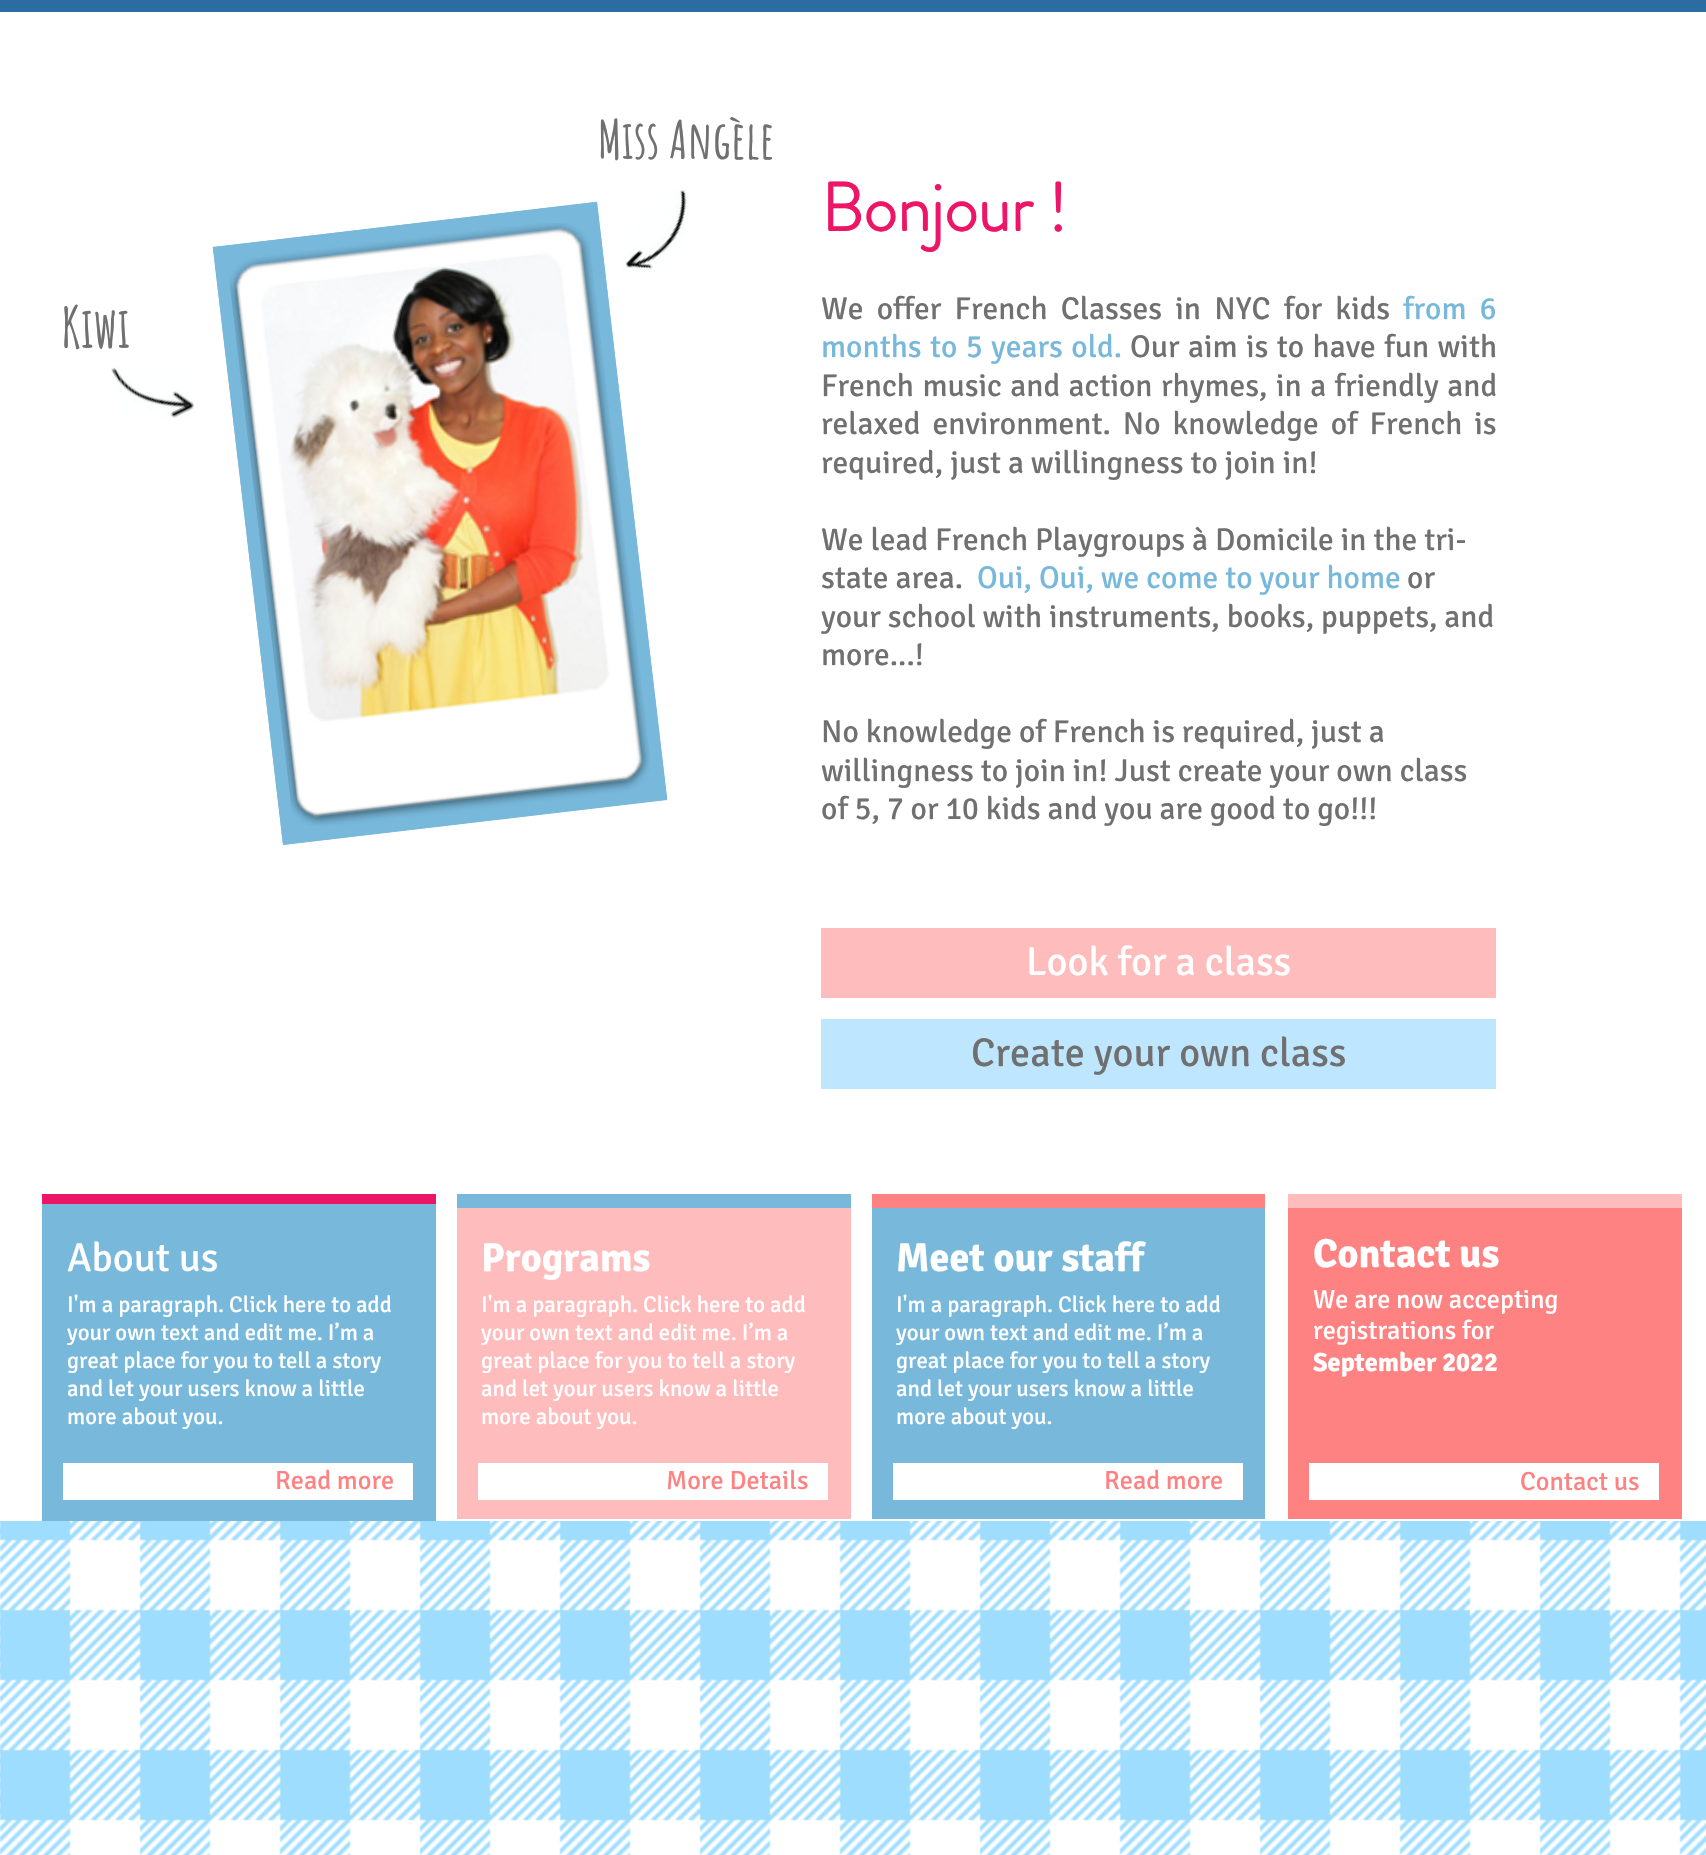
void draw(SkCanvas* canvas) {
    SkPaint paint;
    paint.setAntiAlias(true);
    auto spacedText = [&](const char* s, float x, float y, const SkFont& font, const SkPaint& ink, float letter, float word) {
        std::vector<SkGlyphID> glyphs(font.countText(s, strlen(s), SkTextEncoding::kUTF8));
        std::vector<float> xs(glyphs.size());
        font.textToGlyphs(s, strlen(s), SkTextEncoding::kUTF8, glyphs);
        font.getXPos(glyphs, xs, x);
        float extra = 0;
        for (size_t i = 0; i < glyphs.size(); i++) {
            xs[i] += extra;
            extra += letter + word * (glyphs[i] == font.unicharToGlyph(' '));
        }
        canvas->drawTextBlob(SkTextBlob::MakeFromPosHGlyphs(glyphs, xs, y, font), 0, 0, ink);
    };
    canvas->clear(0xFFFFFFFF);
    paint.setColor(0xFF2B6CA3);
    canvas->drawRect(SkRect::MakeXYWH(0, 0, 1706, 12), paint);
    SkFont font1(fontMgr->matchFamilyStyle("Amatic SC", SkFontStyle::Bold()), 52.5f);
    font1.setSubpixel(true);
    paint.setColor(0xFF717070);
    canvas->drawString("Miss Angèle", 598, 159, font1, paint);
    paint.setColor(0xFF77B8DB);
    canvas->drawPath(SkPathBuilder().moveTo(213, 247).lineTo(597, 202).lineTo(667, 800).lineTo(283, 845).close().detach(), paint);
    paint.setStyle(SkPaint::kStroke_Style);
    paint.setStrokeWidth(12.3f);
    canvas->drawPath(SkPathBuilder().moveTo(219.5f, 252.5f).lineTo(591.5f, 208.5f).lineTo(660.5f, 794).lineTo(288.5f, 838).close().detach(), paint);
    canvas->drawImageRect(SkImages::DeferredFromEncodedData(SkData::MakeFromFileName("img2.png")), SkRect::MakeXYWH(229, 223, 421, 603), SkSamplingOptions());
    canvas->drawImageRect(SkImages::DeferredFromEncodedData(SkData::MakeFromFileName("img1.png")), SkRect::MakeXYWH(623, 189, 66, 83), SkSamplingOptions());
    SkFont font2(fontMgr->matchFamilyStyle("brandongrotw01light", SkFontStyle::Bold()), 68);
    font2.setSubpixel(true);
    paint.setStyle(SkPaint::kFill_Style);
    paint.setColor(0xFFED1566);
    canvas->drawString("Bonjour !", 821, 231, font2, paint);
    SkFont font3(fontMgr->matchFamilyStyle("Signika", SkFontStyle::Normal()), 31.5f);
    font3.setSubpixel(true);
    paint.setColor(0xFF717070);
    spacedText("We offer French Classes in NYC for kids", 821, 319, font3, paint, 0, 6.25f);
    paint.setColor(0xFF77B8DB);
    spacedText("from 6", 1403, 319, font3, paint, 0, 6.25f);
    spacedText("months to 5 years old.", 821, 357, font3, paint, 0, 1.5f);
    paint.setColor(0xFF717070);
    spacedText("Our aim is to have fun with", 1130, 357, font3, paint, 0, 1.5f);
    spacedText("French music and action rhymes, in a friendly and", 821, 396, font3, paint, 0, 1.5f);
    spacedText("relaxed environment. No knowledge of French is", 821, 434, font3, paint, 0, 5);
    canvas->drawString("required, just a willingness to join in!", 821, 473, font3, paint);
    canvas->drawString("We lead French Playgroups à Domicile in the tri-", 821, 550, font3, paint);
    canvas->drawString("state area.", 821, 588, font3, paint);
    paint.setColor(0xFF77B8DB);
    canvas->drawString("Oui, Oui, we come to your home", 977, 588, font3, paint);
    paint.setColor(0xFF717070);
    canvas->drawString("or", 1407, 588, font3, paint);
    canvas->drawString("your school with instruments, books, puppets, and", 821, 627, font3, paint);
    canvas->drawString("more...!", 821, 665, font3, paint);
    canvas->drawString("No knowledge of French is required, just a", 821, 742, font3, paint);
    canvas->drawString("willingness to join in! Just create your own class", 821, 781, font3, paint);
    canvas->drawString("of 5, 7 or 10 kids and you are good to go!!!", 821, 819, font3, paint);
    SkFont font4(fontMgr->matchFamilyStyle("Amatic SC", SkFontStyle::Bold()), 56);
    font4.setSubpixel(true);
    canvas->drawString("Kiwi", 61, 348, font4, paint);
    canvas->drawImageRect(SkImages::DeferredFromEncodedData(SkData::MakeFromFileName("img3.png")), SkRect::MakeXYWH(111, 367, 84, 51), SkSamplingOptions());
    paint.setColor(0xFFFFBCBC);
    canvas->drawRect(SkRect::MakeXYWH(821, 928, 675, 70), paint);
    SkFont font5(fontMgr->matchFamilyStyle("Signika", SkFontStyle::Normal()), 40.25f);
    font5.setSubpixel(true);
    paint.setColor(0xFFFFFFFF);
    canvas->drawString("Look for a class", 1026, 975, font5, paint);
    paint.setColor(0xFFBFE6FF);
    canvas->drawRect(SkRect::MakeXYWH(821, 1019, 675, 70), paint);
    paint.setColor(0xFF717070);
    canvas->drawString("Create your own class", 971, 1066, font5, paint);
    paint.setColor(0xFFED1566);
    canvas->drawRect(SkRect::MakeXYWH(42, 1194, 394, 10), paint);
    paint.setColor(0xFF77B8DB);
    canvas->drawRect(SkRect::MakeXYWH(457, 1194, 394, 14), paint);
    paint.setColor(0xFFFF8282);
    canvas->drawRect(SkRect::MakeXYWH(872, 1194, 393, 14), paint);
    paint.setColor(0xFFFFBCBC);
    canvas->drawRect(SkRect::MakeXYWH(1288, 1194, 394, 14), paint);
    paint.setColor(0xFF77B8DB);
    canvas->drawRect(SkRect::MakeXYWH(42, 1204, 394, 317), paint);
    paint.setColor(0xFFFFFFFF);
    canvas->drawString("About us", 67, 1271, font5, paint);
    SkFont font6(fontMgr->matchFamilyStyle("Signika", SkFontStyle::Normal()), 22.75f);
    font6.setSubpixel(true);
    canvas->drawString("I'm a paragraph. Click here to add", 67, 1312, font6, paint);
    canvas->drawString("your own text and edit me. I’m a", 67, 1340, font6, paint);
    canvas->drawString("great place for you to tell a story", 67, 1368, font6, paint);
    canvas->drawString("and let your users know a little", 67, 1396, font6, paint);
    canvas->drawString("more about you.", 67, 1424, font6, paint);
    canvas->drawRect(SkRect::MakeXYWH(63, 1463, 350, 37), paint);
    SkFont font7(fontMgr->matchFamilyStyle("Signika", SkFontStyle::Normal()), 26.25f);
    font7.setSubpixel(true);
    paint.setColor(0xFFFF8282);
    canvas->drawString("Read more", 275, 1489, font7, paint);
    paint.setColor(0xFFFFBCBC);
    canvas->drawRect(SkRect::MakeXYWH(457, 1208, 394, 311), paint);
    SkFont font8(fontMgr->matchFamilyStyle("Signika", SkFontStyle::Bold()), 40.25f);
    font8.setSubpixel(true);
    paint.setColor(0xFFFFFFFF);
    canvas->drawString("Programs", 481, 1271, font8, paint);
    canvas->drawString("I'm a paragraph. Click here to add", 481, 1312, font6, paint);
    canvas->drawString("your own text and edit me. I’m a", 481, 1340, font6, paint);
    canvas->drawString("great place for you to tell a story", 481, 1368, font6, paint);
    canvas->drawString("and let your users know a little", 481, 1396, font6, paint);
    canvas->drawString("more about you.", 481, 1424, font6, paint);
    canvas->drawRect(SkRect::MakeXYWH(478, 1463, 350, 37), paint);
    paint.setColor(0xFFFF8282);
    canvas->drawString("More Details", 666, 1489, font7, paint);
    paint.setColor(0xFF77B8DB);
    canvas->drawRect(SkRect::MakeXYWH(872, 1208, 393, 311), paint);
    paint.setColor(0xFFFFFFFF);
    canvas->drawString("Meet our staff", 896, 1271, font8, paint);
    canvas->drawString("I'm a paragraph. Click here to add", 896, 1312, font6, paint);
    canvas->drawString("your own text and edit me. I’m a", 896, 1340, font6, paint);
    canvas->drawString("great place for you to tell a story", 896, 1368, font6, paint);
    canvas->drawString("and let your users know a little", 896, 1396, font6, paint);
    canvas->drawString("more about you.", 896, 1424, font6, paint);
    canvas->drawRect(SkRect::MakeXYWH(893, 1463, 350, 37), paint);
    paint.setColor(0xFFFF8282);
    canvas->drawString("Read more", 1104, 1489, font7, paint);
    canvas->drawRect(SkRect::MakeXYWH(1288, 1208, 394, 311), paint);
    paint.setColor(0xFFFFFFFF);
    canvas->drawString("Contact us", 1313, 1267, font8, paint);
    canvas->drawString("We are now accepting", 1313, 1308, font7, paint);
    canvas->drawString("registrations for", 1313, 1339, font7, paint);
    SkFont font9(fontMgr->matchFamilyStyle("Signika", SkFontStyle::Bold()), 26.25f);
    font9.setSubpixel(true);
    canvas->drawString("September 2022", 1313, 1371, font9, paint);
    canvas->drawRect(SkRect::MakeXYWH(1309, 1463, 350, 37), paint);
    paint.setColor(0xFFFF8282);
    canvas->drawString("Contact us", 1520, 1490, font7, paint);
    canvas->drawImageRect(SkImages::DeferredFromEncodedData(SkData::MakeFromFileName("img4.png")), SkRect::MakeXYWH(0, 1521, 1706, 334), SkSamplingOptions());
}
